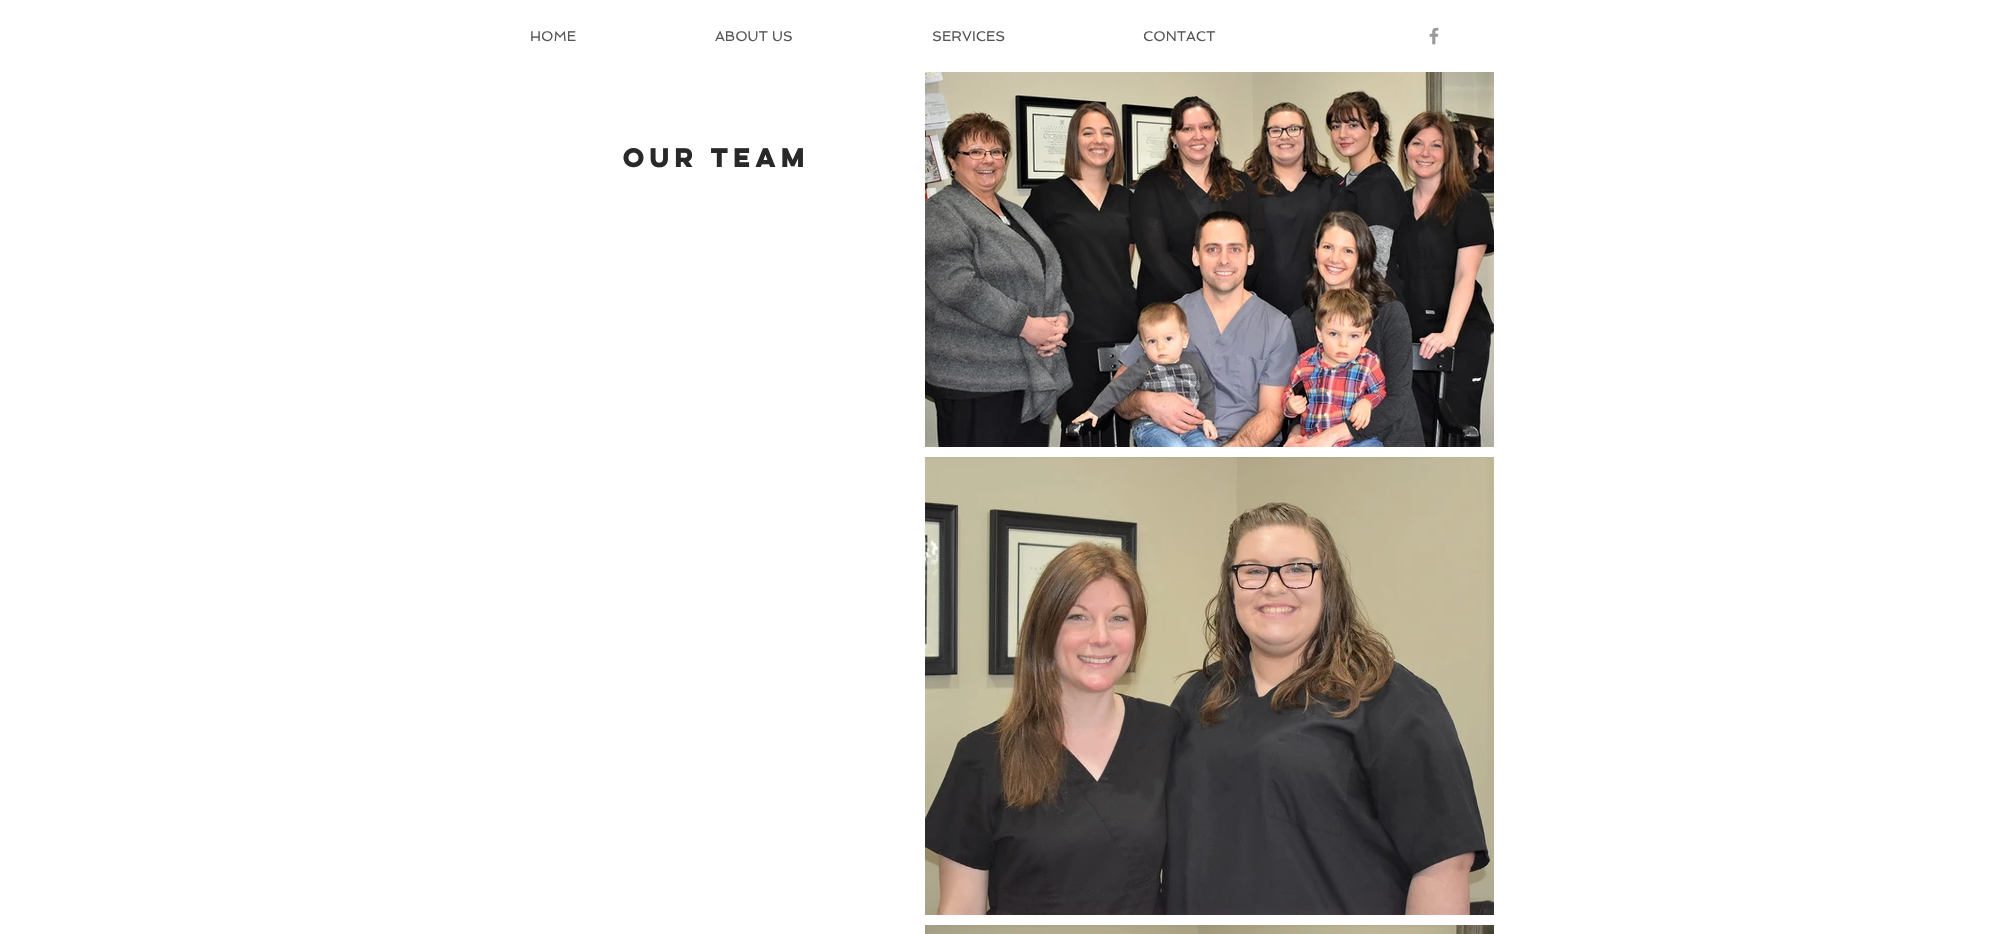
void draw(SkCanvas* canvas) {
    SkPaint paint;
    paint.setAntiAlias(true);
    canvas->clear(0xFFFFFFFF);
    SkFont font1(fontMgr->matchFamilyStyle("Spinnaker", SkFontStyle::Normal()), 14);
    font1.setSubpixel(true);
    paint.setColor(0xFF555555);
    canvas->drawString("HOME", 530, 41, font1, paint);
    canvas->drawString("ABOUT US", 715, 41, font1, paint);
    canvas->drawString("SERVICES", 932, 41, font1, paint);
    canvas->drawString("CONTACT", 1143, 41, font1, paint);
    canvas->drawImageRect(SkImages::DeferredFromEncodedData(SkData::MakeFromFileName("img1.png")), SkRect::MakeXYWH(1429, 27, 10, 18), SkSamplingOptions());
    SkFont font2(fontMgr->matchFamilyStyle("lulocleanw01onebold", SkFontStyle::Bold()), 24);
    font2.setSubpixel(true);
    paint.setColor(0xFF292929);
    canvas->drawString("Our team", 623, 167, font2, paint);
    canvas->drawImageRect(SkImages::DeferredFromEncodedData(SkData::MakeFromFileName("img2.png")), SkRect::MakeXYWH(925, 72, 569, 375), SkSamplingOptions());
    canvas->drawImageRect(SkImages::DeferredFromEncodedData(SkData::MakeFromFileName("img3.png")), SkRect::MakeXYWH(925, 457, 569, 458), SkSamplingOptions());
    canvas->drawImageRect(SkImages::DeferredFromEncodedData(SkData::MakeFromFileName("img4.png")), SkRect::MakeXYWH(925, 925, 569, 9), SkSamplingOptions());
}
